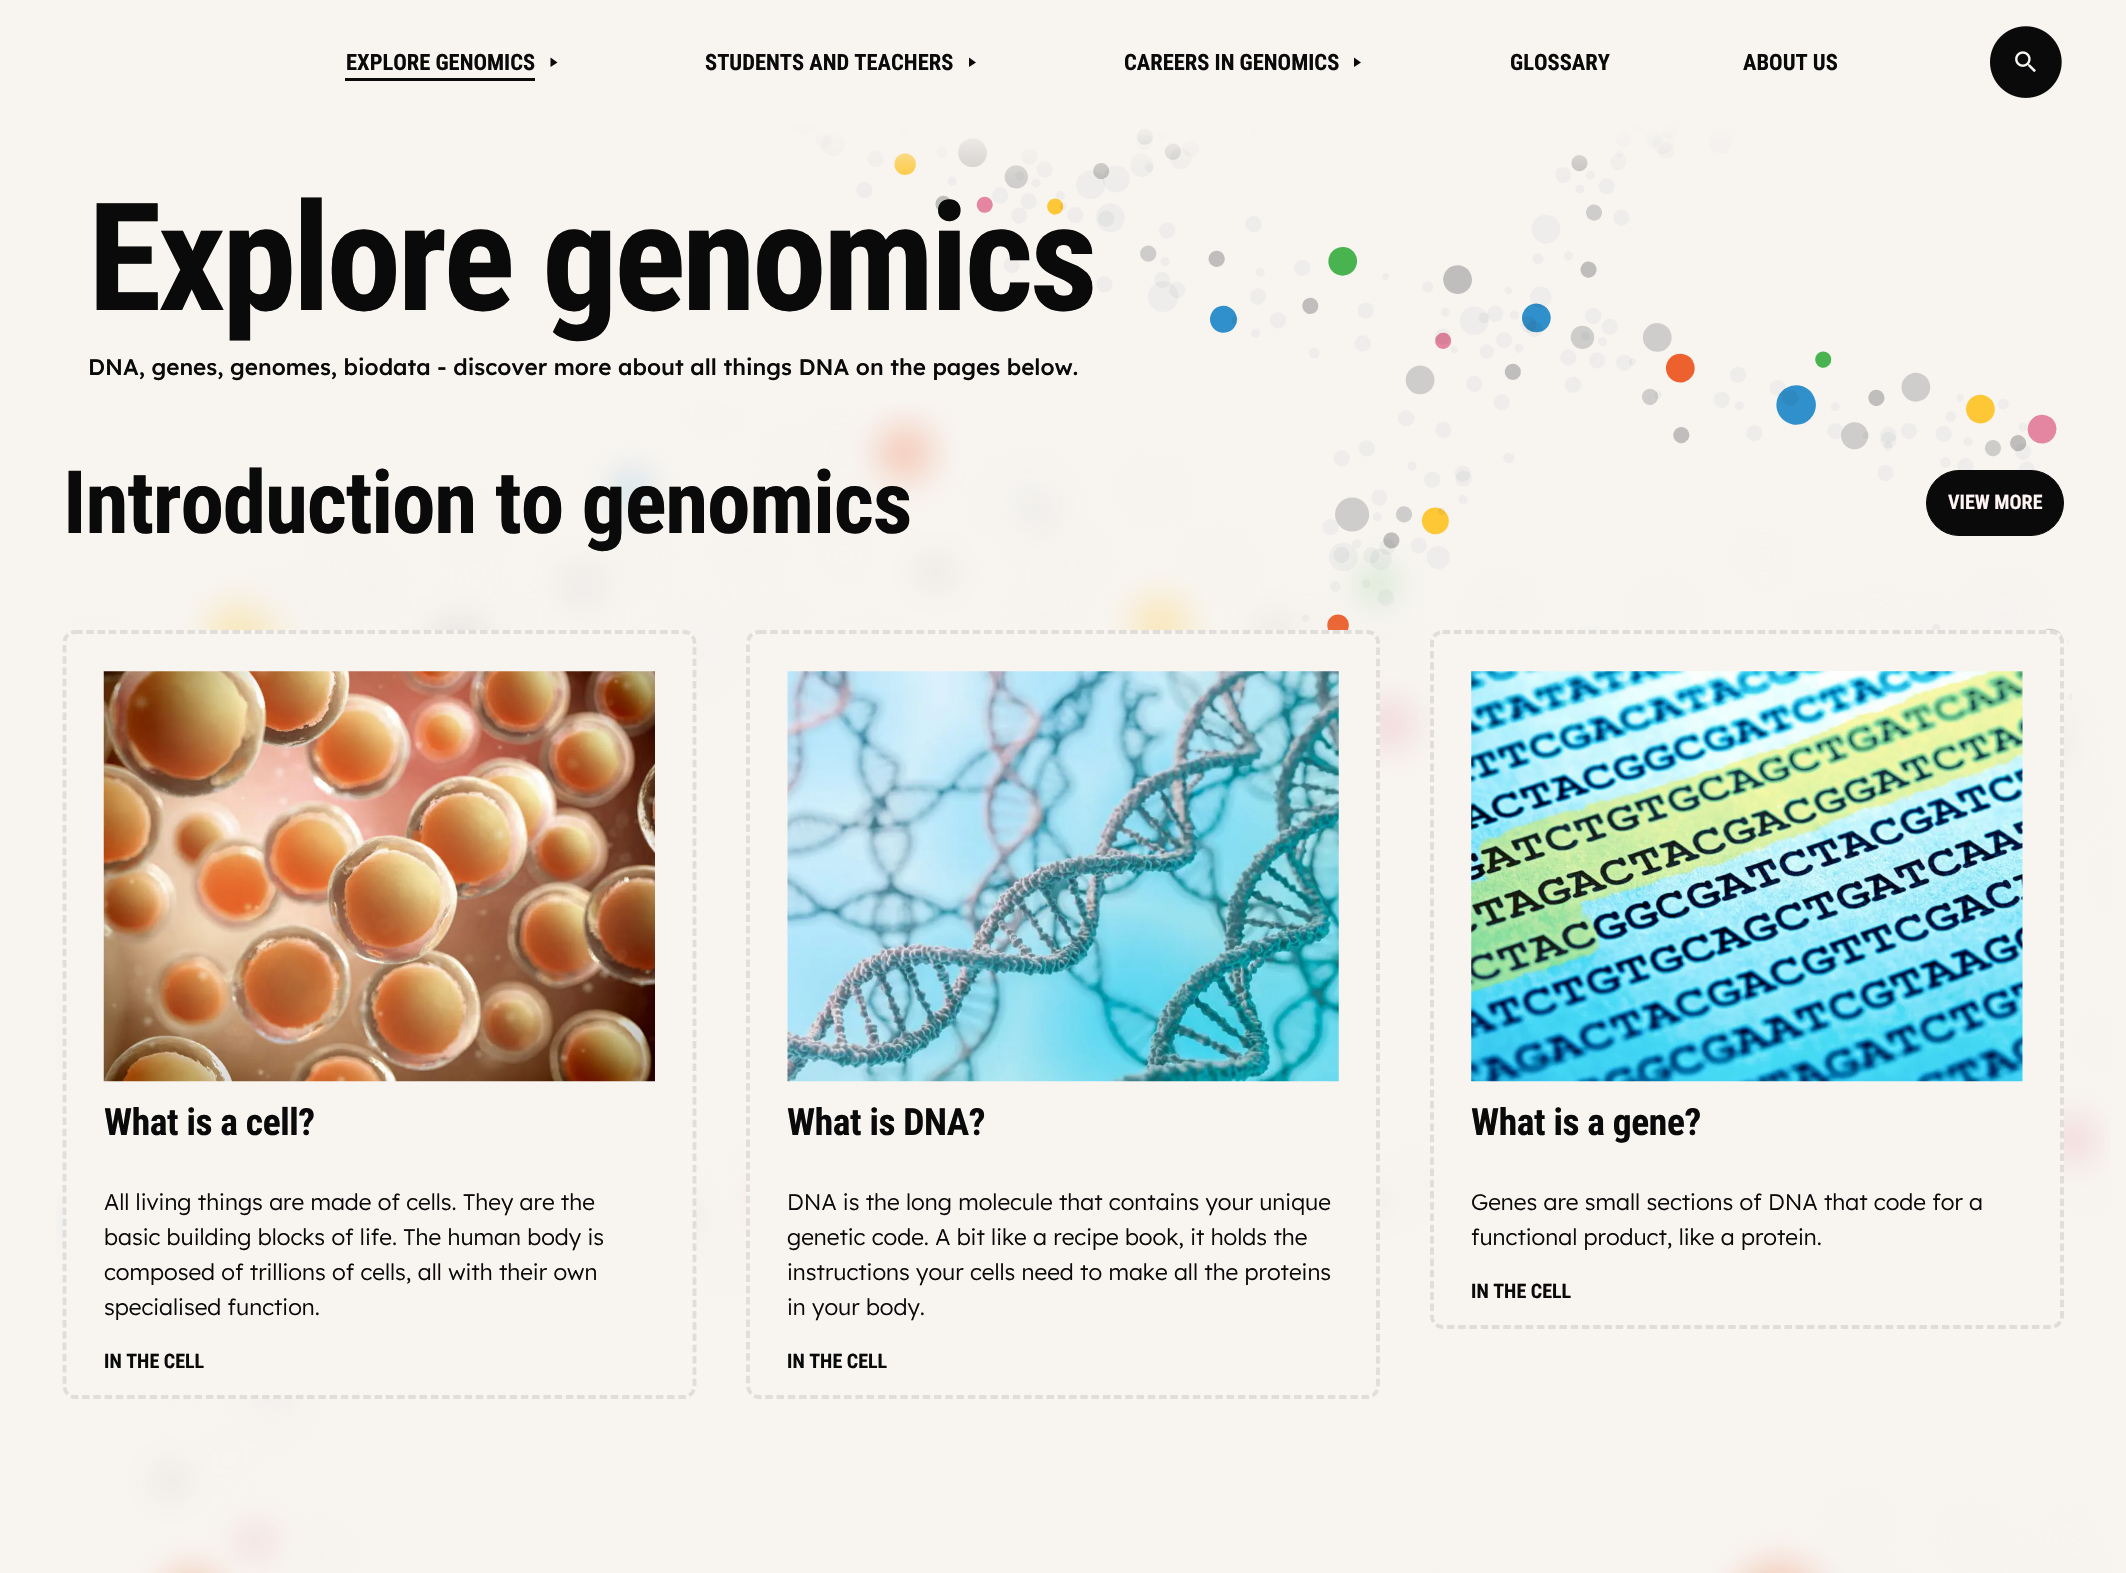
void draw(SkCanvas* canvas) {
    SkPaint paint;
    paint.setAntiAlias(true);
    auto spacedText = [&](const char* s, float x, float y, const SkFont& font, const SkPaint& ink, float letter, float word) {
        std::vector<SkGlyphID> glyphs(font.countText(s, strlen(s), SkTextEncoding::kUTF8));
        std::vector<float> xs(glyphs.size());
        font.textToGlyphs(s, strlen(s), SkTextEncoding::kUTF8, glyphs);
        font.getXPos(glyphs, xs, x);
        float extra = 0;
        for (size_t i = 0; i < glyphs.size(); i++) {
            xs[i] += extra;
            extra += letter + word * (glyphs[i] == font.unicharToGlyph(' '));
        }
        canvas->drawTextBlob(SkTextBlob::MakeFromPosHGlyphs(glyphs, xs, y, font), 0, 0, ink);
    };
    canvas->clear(0xFFF8F5F1);
    canvas->drawImageRect(SkImages::DeferredFromEncodedData(SkData::MakeFromFileName("img2.png")), SkRect::MakeXYWH(792, 125, 1280, 576), SkSamplingOptions());
    paint.setColor(0xFFF8F5F1);
    paint.setMaskFilter(SkMaskFilter::MakeBlur(kNormal_SkBlurStyle, 20.5f));
    canvas->drawRect(SkRect::MakeXYWH(0, 25, 2126, 125), paint);
    paint.setMaskFilter(nullptr);
    SkFont font1(fontMgr->matchFamilyStyle("Roboto Condensed", SkFontStyle::Bold()), 22.5f);
    font1.setSubpixel(true);
    paint.setColor(0xFF0A0A0A);
    canvas->drawString("EXPLORE GENOMICS", 346, 70, font1, paint);
    canvas->drawRect(SkRect::MakeXYWH(345, 78, 190, 3), paint);
    canvas->drawPath(SkPathBuilder().moveTo(550.5f, 67).lineTo(550.5f, 57.5f).lineTo(557.5f, 62.5f).close().detach(), paint);
    canvas->drawString("STUDENTS AND TEACHERS", 705, 70, font1, paint);
    canvas->drawPath(SkPathBuilder().moveTo(969, 67).lineTo(969, 57.5f).lineTo(976, 62.5f).close().detach(), paint);
    canvas->drawString("CAREERS IN GENOMICS", 1124, 70, font1, paint);
    canvas->drawPath(SkPathBuilder().moveTo(1354, 67).lineTo(1354, 57.5f).lineTo(1361, 62.5f).close().detach(), paint);
    canvas->drawString("GLOSSARY", 1510, 70, font1, paint);
    canvas->drawString("ABOUT US", 1743, 70, font1, paint);
    canvas->drawImageRect(SkImages::DeferredFromEncodedData(SkData::MakeFromFileName("img1.png")), SkRect::MakeXYWH(1990, 26, 72, 72), SkSamplingOptions());
    SkFont font2(fontMgr->matchFamilyStyle("Roboto Condensed", SkFontStyle::Bold()), 150);
    font2.setSubpixel(true);
    spacedText("Explore genomics", 88, 310, font2, paint, -3.75f, 0);
    SkFont font3(fontMgr->matchFamilyStyle("Lexend", SkFontStyle(500, SkFontStyle::kNormal_Width, SkFontStyle::kUpright_Slant)), 22.5f);
    font3.setSubpixel(true);
    canvas->drawString("DNA, genes, genomes, biodata - discover more about all things DNA on the pages below.", 88, 375, font3, paint);
    canvas->drawImageRect(SkImages::DeferredFromEncodedData(SkData::MakeFromFileName("img6.png")), SkRect::MakeXYWH(56, 404, 2054, 1169), SkSamplingOptions());
    SkFont font4(fontMgr->matchFamilyStyle("Roboto Condensed", SkFontStyle::Bold()), 87.5f);
    font4.setSubpixel(true);
    spacedText("Introduction to genomics", 63, 533, font4, paint, -1.25f, 0);
    canvas->drawRoundRect(SkRect::MakeXYWH(1926.5f, 470.5f, 137, 65), 32.5f, 32.5f, paint);
    paint.setStyle(SkPaint::kStroke_Style);
    paint.setStrokeWidth(1);
    canvas->drawRoundRect(SkRect::MakeXYWH(1926.5f, 470.5f, 137, 65), 32.5f, 32.5f, paint);
    SkFont font5(fontMgr->matchFamilyStyle("Roboto Condensed", SkFontStyle::Bold()), 20);
    font5.setSubpixel(true);
    paint.setStyle(SkPaint::kFill_Style);
    paint.setColor(0xFFFFF4F4);
    canvas->drawString("VIEW MORE", 1948, 509, font5, paint);
    paint.setColor(0xFFF8F5F1);
    canvas->drawRoundRect(SkRect::MakeXYWH(63, 630, 633, 769), 13, 13, paint);
    paint.setStyle(SkPaint::kStroke_Style);
    paint.setStrokeWidth(3.8f);
    paint.setColor(0xFFE0DDDA);
    paint.setPathEffect(SkDashPathEffect::Make({{7.5f, 3.75f}}, 0));
    canvas->drawPath(SkPathBuilder().moveTo(75, 632).lineTo(684, 632).cubicTo(689.5f, 632, 694.5f, 636.5f, 694.5f, 642.5f).lineTo(694.5f, 1386).cubicTo(694.5f, 1392, 689.5f, 1397, 684, 1397).lineTo(75, 1397).cubicTo(69, 1397, 64.5f, 1392, 64.5f, 1386).lineTo(64.5f, 642.5f).cubicTo(64.5f, 636.5f, 69, 632, 75, 632).close().detach(), paint);
    paint.setPathEffect(nullptr);
    canvas->drawImageRect(SkImages::DeferredFromEncodedData(SkData::MakeFromFileName("img3.png")), SkRect::MakeXYWH(103, 671, 552, 411), SkSamplingOptions());
    SkFont font6(fontMgr->matchFamilyStyle("Roboto Condensed", SkFontStyle::Bold()), 37.5f);
    font6.setSubpixel(true);
    paint.setStyle(SkPaint::kFill_Style);
    paint.setColor(0xFF0A0A0A);
    spacedText("What is a cell?", 104, 1135, font6, paint, -0.4f, 0);
    SkFont font7(fontMgr->matchFamilyStyle("Lexend", SkFontStyle(300, SkFontStyle::kNormal_Width, SkFontStyle::kUpright_Slant)), 22.5f);
    font7.setSubpixel(true);
    canvas->drawString("All living things are made of cells. They are the", 104, 1210, font7, paint);
    canvas->drawString("basic building blocks of life. The human body is", 104, 1245, font7, paint);
    canvas->drawString("composed of trillions of cells, all with their own", 104, 1280, font7, paint);
    canvas->drawString("specialised function.", 104, 1315, font7, paint);
    canvas->drawString("IN THE CELL", 104, 1368, font5, paint);
    paint.setColor(0xFFF8F5F1);
    canvas->drawRoundRect(SkRect::MakeXYWH(746, 630, 634, 769), 13, 13, paint);
    paint.setStyle(SkPaint::kStroke_Style);
    paint.setColor(0xFFE0DDDA);
    paint.setPathEffect(SkDashPathEffect::Make({{7.5f, 3.75f}}, 0));
    canvas->drawPath(SkPathBuilder().moveTo(759, 632).lineTo(1367.5f, 632).cubicTo(1373.5f, 632, 1378, 636.5f, 1378, 642.5f).lineTo(1378, 1386).cubicTo(1378, 1392, 1373.5f, 1397, 1367.5f, 1397).lineTo(759, 1397).cubicTo(753, 1397, 748, 1392, 748, 1386).lineTo(748, 642.5f).cubicTo(748, 636.5f, 753, 632, 759, 632).close().detach(), paint);
    paint.setPathEffect(nullptr);
    canvas->drawImageRect(SkImages::DeferredFromEncodedData(SkData::MakeFromFileName("img4.png")), SkRect::MakeXYWH(787, 671, 552, 411), SkSamplingOptions());
    paint.setStyle(SkPaint::kFill_Style);
    paint.setColor(0xFF0A0A0A);
    spacedText("What is DNA?", 787, 1135, font6, paint, -0.4f, 0);
    canvas->drawString("DNA is the long molecule that contains your unique", 787, 1210, font7, paint);
    canvas->drawString("genetic code. A bit like a recipe book, it holds the", 787, 1245, font7, paint);
    canvas->drawString("instructions your cells need to make all the proteins", 787, 1280, font7, paint);
    canvas->drawString("in your body.", 787, 1315, font7, paint);
    canvas->drawString("IN THE CELL", 787, 1368, font5, paint);
    paint.setColor(0xFFF8F5F1);
    canvas->drawRoundRect(SkRect::MakeXYWH(1430, 630, 634, 699), 13, 13, paint);
    paint.setStyle(SkPaint::kStroke_Style);
    paint.setColor(0x1A0A0A0A);
    paint.setPathEffect(SkDashPathEffect::Make({{7.5f, 3.75f}}, 0));
    canvas->drawPath(SkPathBuilder().moveTo(1442.5f, 632).lineTo(2051, 632).cubicTo(2057, 632, 2062, 636.5f, 2062, 642.5f).lineTo(2062, 1316).cubicTo(2062, 1322, 2057, 1327, 2051, 1327).lineTo(1442.5f, 1327).cubicTo(1436.5f, 1327, 1432, 1322, 1432, 1316).lineTo(1432, 642.5f).cubicTo(1432, 636.5f, 1436.5f, 632, 1442.5f, 632).close().detach(), paint);
    paint.setPathEffect(nullptr);
    canvas->drawImageRect(SkImages::DeferredFromEncodedData(SkData::MakeFromFileName("img5.png")), SkRect::MakeXYWH(1471, 671, 552, 411), SkSamplingOptions());
    paint.setStyle(SkPaint::kFill_Style);
    paint.setColor(0xFF0A0A0A);
    spacedText("What is a gene?", 1471, 1135, font6, paint, -0.4f, 0);
    canvas->drawString("Genes are small sections of DNA that code for a", 1471, 1210, font7, paint);
    canvas->drawString("functional product, like a protein.", 1471, 1245, font7, paint);
    canvas->drawString("IN THE CELL", 1471, 1298, font5, paint);
}
